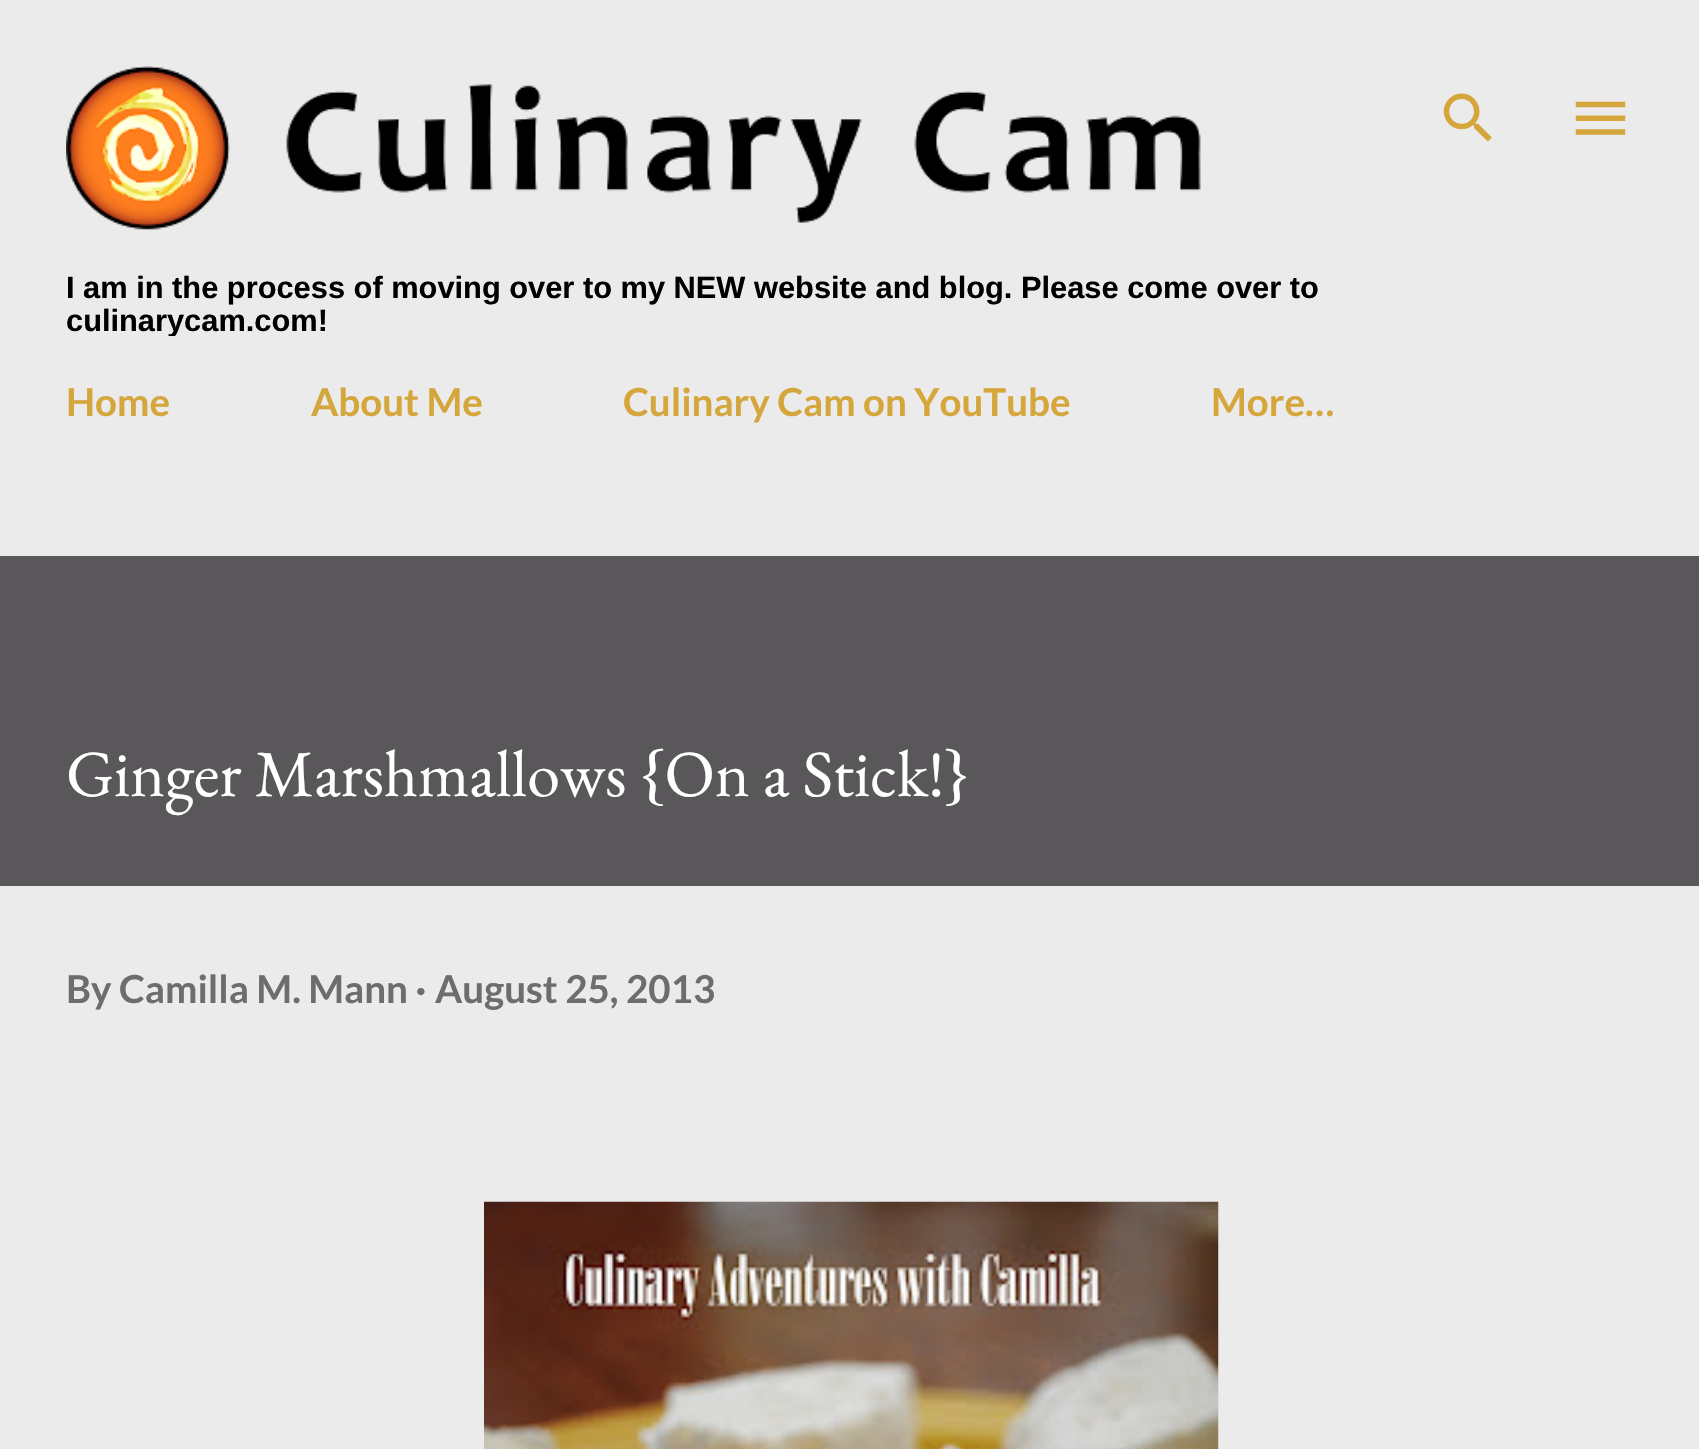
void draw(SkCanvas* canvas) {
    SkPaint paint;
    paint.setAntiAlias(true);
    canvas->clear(0xFFEBEBEB);
    canvas->drawImageRect(SkImages::DeferredFromEncodedData(SkData::MakeFromFileName("img1.png")), SkRect::MakeXYWH(1575, 101, 51, 34), SkSamplingOptions());
    canvas->drawImageRect(SkImages::DeferredFromEncodedData(SkData::MakeFromFileName("img2.png")), SkRect::MakeXYWH(1443, 93, 49, 49), SkSamplingOptions());
    canvas->drawImageRect(SkImages::DeferredFromEncodedData(SkData::MakeFromFileName("img3.png")), SkRect::MakeXYWH(66, 66, 1135, 164), SkSamplingOptions());
    SkFont font1(fontMgr->matchFamilyStyle("Liberation Sans", SkFontStyle::Bold()), 30.8f);
    font1.setSubpixel(true);
    paint.setColor(0xFF000000);
    canvas->drawString("I am in the process of moving over to my NEW website and blog. Please come over to", 66, 298, font1, paint);
    canvas->save();
    canvas->clipRect(SkRect::MakeXYWH(66, 66, 1436, 270));
    canvas->drawString("culinarycam.com!", 66, 331, font1, paint);
    canvas->restore();
    SkFont font2(fontMgr->matchFamilyStyle("Lato", SkFontStyle::Bold()), 38.5f);
    font2.setSubpixel(true);
    paint.setColor(0xFFD5A63B);
    canvas->drawString("Home", 66, 416, font2, paint);
    canvas->drawString("About Me", 311, 416, font2, paint);
    canvas->drawString("Culinary Cam on YouTube", 623, 416, font2, paint);
    canvas->drawString("More…", 1211, 416, font2, paint);
    paint.setColor(0xFF5A575B);
    canvas->drawRect(SkRect::MakeXYWH(0, 556, 1699, 330), paint);
    SkFont font3(fontMgr->matchFamilyStyle("EB Garamond", SkFontStyle::Normal()), 66);
    font3.setSubpixel(true);
    paint.setColor(0xFFFFFFFF);
    canvas->drawString("Ginger Marshmallows {On a Stick!}", 66, 796, font3, paint);
    paint.setColor(0xFF6D6D6D);
    canvas->drawString("By Camilla M. Mann ·", 66, 1003, font2, paint);
    canvas->drawString("August 25, 2013", 435, 1003, font2, paint);
    canvas->drawImageRect(SkImages::DeferredFromEncodedData(SkData::MakeFromFileName("img4.png")), SkRect::MakeXYWH(484, 1201, 735, 248), SkSamplingOptions());
}
